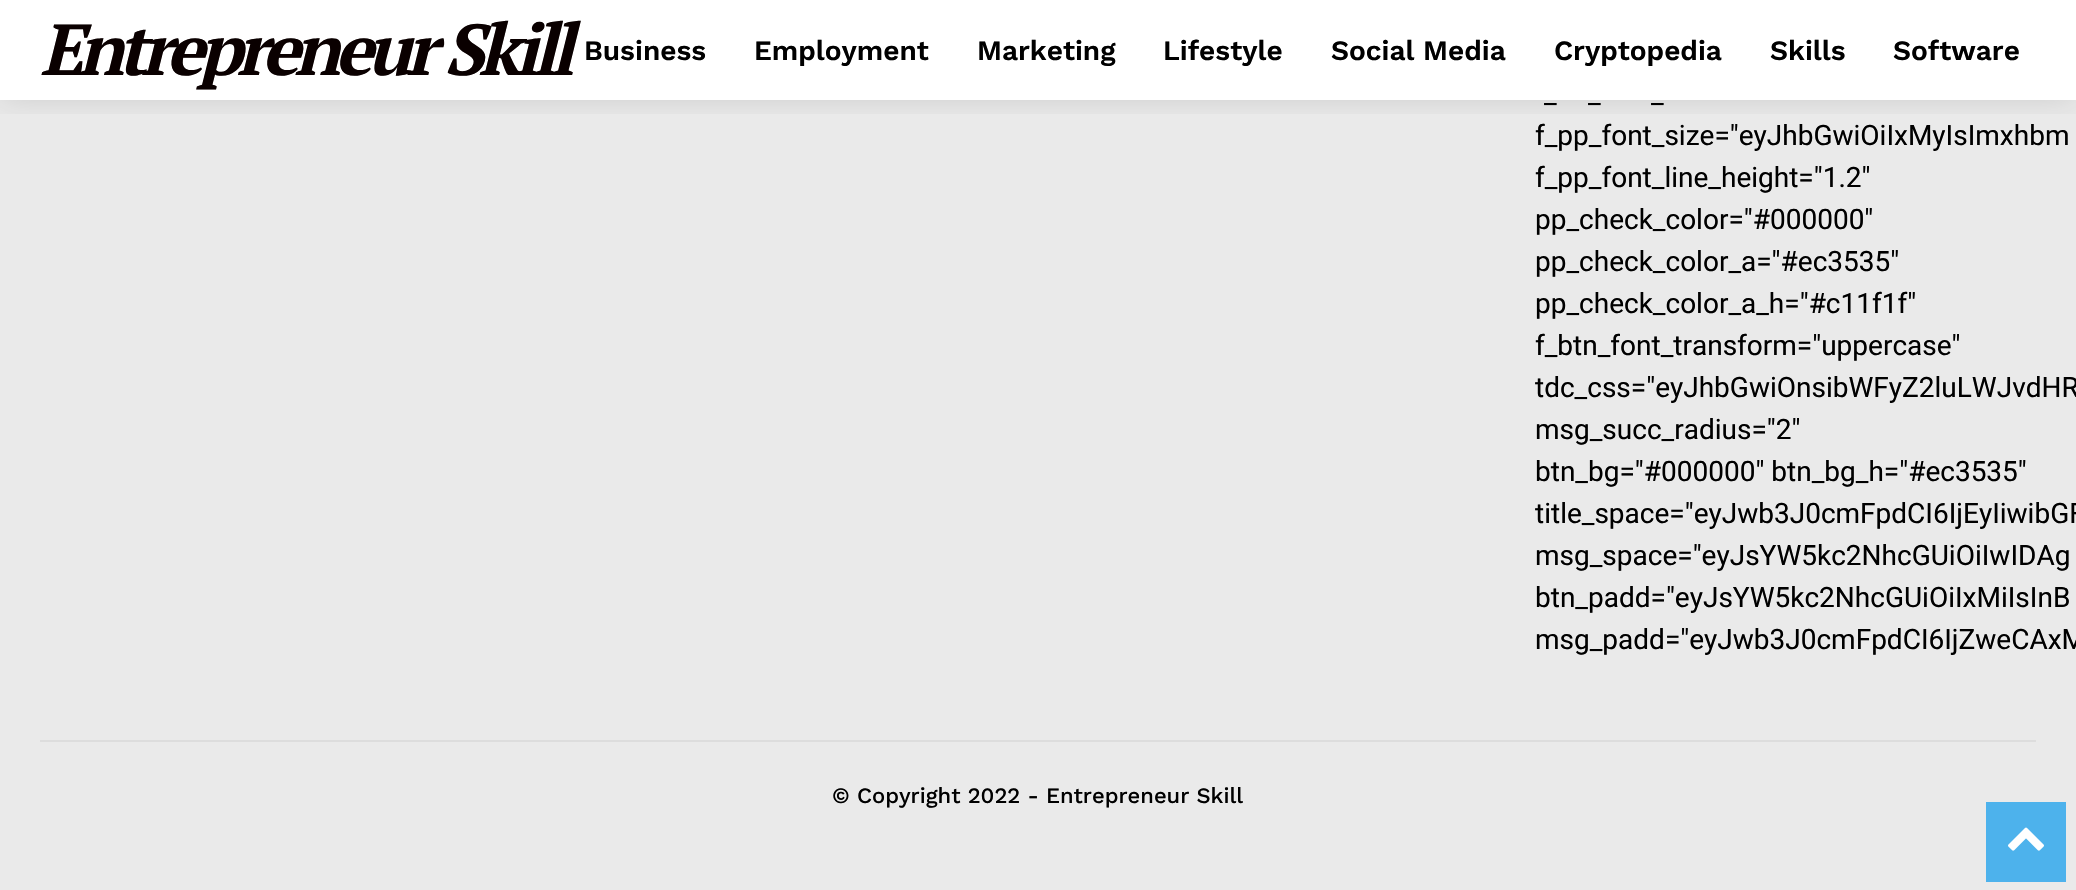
void draw(SkCanvas* canvas) {
    SkPaint paint;
    paint.setAntiAlias(true);
    auto spacedText = [&](const char* s, float x, float y, const SkFont& font, const SkPaint& ink, float letter, float word) {
        std::vector<SkGlyphID> glyphs(font.countText(s, strlen(s), SkTextEncoding::kUTF8));
        std::vector<float> xs(glyphs.size());
        font.textToGlyphs(s, strlen(s), SkTextEncoding::kUTF8, glyphs);
        font.getXPos(glyphs, xs, x);
        float extra = 0;
        for (size_t i = 0; i < glyphs.size(); i++) {
            xs[i] += extra;
            extra += letter + word * (glyphs[i] == font.unicharToGlyph(' '));
        }
        canvas->drawTextBlob(SkTextBlob::MakeFromPosHGlyphs(glyphs, xs, y, font), 0, 0, ink);
    };
    canvas->clear(0xFFEAEAEA);
    paint.setColor(0xFFFFFFFF);
    canvas->drawRect(SkRect::MakeXYWH(0, 0, 2076, 100), paint);
    canvas->save();
    canvas->clipRect(SkRect::MakeXYWH(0, 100, 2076, 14));
    paint.setColor(0x1F000000);
    paint.setMaskFilter(SkMaskFilter::MakeBlur(kNormal_SkBlurStyle, 15));
    canvas->drawRect(SkRect::MakeXYWH(0, 0, 2076, 100), paint);
    paint.setMaskFilter(nullptr);
    canvas->restore();
    SkFont font1(fontMgr->matchFamilyStyle("PT Serif", SkFontStyle::BoldItalic()), 72);
    font1.setSubpixel(true);
    paint.setColor(0xFF0A0000);
    spacedText("Entrepreneur Skill", 40, 75, font1, paint, -6, 0);
    SkFont font2(fontMgr->matchFamilyStyle("Work Sans", SkFontStyle(600, SkFontStyle::kNormal_Width, SkFontStyle::kUpright_Slant)), 28);
    font2.setSubpixel(true);
    paint.setColor(0xFF000000);
    canvas->drawString("Business", 584, 60, font2, paint);
    canvas->drawString("Employment", 754, 60, font2, paint);
    canvas->drawString("Marketing", 977, 60, font2, paint);
    canvas->drawString("Lifestyle", 1163, 60, font2, paint);
    canvas->drawString("Social Media", 1331, 60, font2, paint);
    canvas->drawString("Cryptopedia", 1554, 60, font2, paint);
    canvas->drawString("Skills", 1770, 60, font2, paint);
    canvas->drawString("Software", 1893, 60, font2, paint);
    SkFont font3(fontMgr->matchFamilyStyle("Roboto", SkFontStyle::Normal()), 28);
    font3.setSubpixel(true);
    canvas->drawString("_", 1544, 103, font3, paint);
    canvas->drawString("_", 1588, 103, font3, paint);
    canvas->drawString("_", 1651, 103, font3, paint);
    canvas->drawString("f_pp_font_size=\"eyJhbGwiOiIxMyIsImxhbm", 1535, 145, font3, paint);
    canvas->drawString("f_pp_font_line_height=\"1.2\"", 1535, 187, font3, paint);
    canvas->drawString("pp_check_color=\"#000000\"", 1535, 229, font3, paint);
    canvas->drawString("pp_check_color_a=\"#ec3535\"", 1535, 271, font3, paint);
    canvas->drawString("pp_check_color_a_h=\"#c11f1f\"", 1535, 313, font3, paint);
    canvas->drawString("f_btn_font_transform=\"uppercase\"", 1535, 355, font3, paint);
    canvas->drawString("tdc_css=\"eyJhbGwiOnsibWFyZ2luLWJvdHR", 1535, 397, font3, paint);
    canvas->drawString("msg_succ_radius=\"2\"", 1535, 439, font3, paint);
    canvas->drawString("btn_bg=\"#000000\" btn_bg_h=\"#ec3535\"", 1535, 481, font3, paint);
    canvas->drawString("title_space=\"eyJwb3J0cmFpdCI6IjEyIiwibGF", 1535, 523, font3, paint);
    canvas->drawString("msg_space=\"eyJsYW5kc2NhcGUiOiIwIDAg", 1535, 565, font3, paint);
    canvas->drawString("btn_padd=\"eyJsYW5kc2NhcGUiOiIxMiIsInB", 1535, 607, font3, paint);
    canvas->drawString("msg_padd=\"eyJwb3J0cmFpdCI6IjZweCAxM", 1535, 649, font3, paint);
    paint.setColor(0xFFDDDDDD);
    canvas->drawRect(SkRect::MakeXYWH(40, 740, 1996, 2), paint);
    SkFont font4(fontMgr->matchFamilyStyle("Work Sans", SkFontStyle(500, SkFontStyle::kNormal_Width, SkFontStyle::kUpright_Slant)), 22);
    font4.setSubpixel(true);
    paint.setColor(0xFF000000);
    canvas->drawString("© Copyright 2022 - Entrepreneur Skill", 832, 803, font4, paint);
    paint.setColor(0xFF4DB2EC);
    canvas->drawRect(SkRect::MakeXYWH(1986, 802, 80, 80), paint);
    canvas->drawImageRect(SkImages::DeferredFromEncodedData(SkData::MakeFromFileName("img1.png")), SkRect::MakeXYWH(2008, 827, 36, 24), SkSamplingOptions());
}
